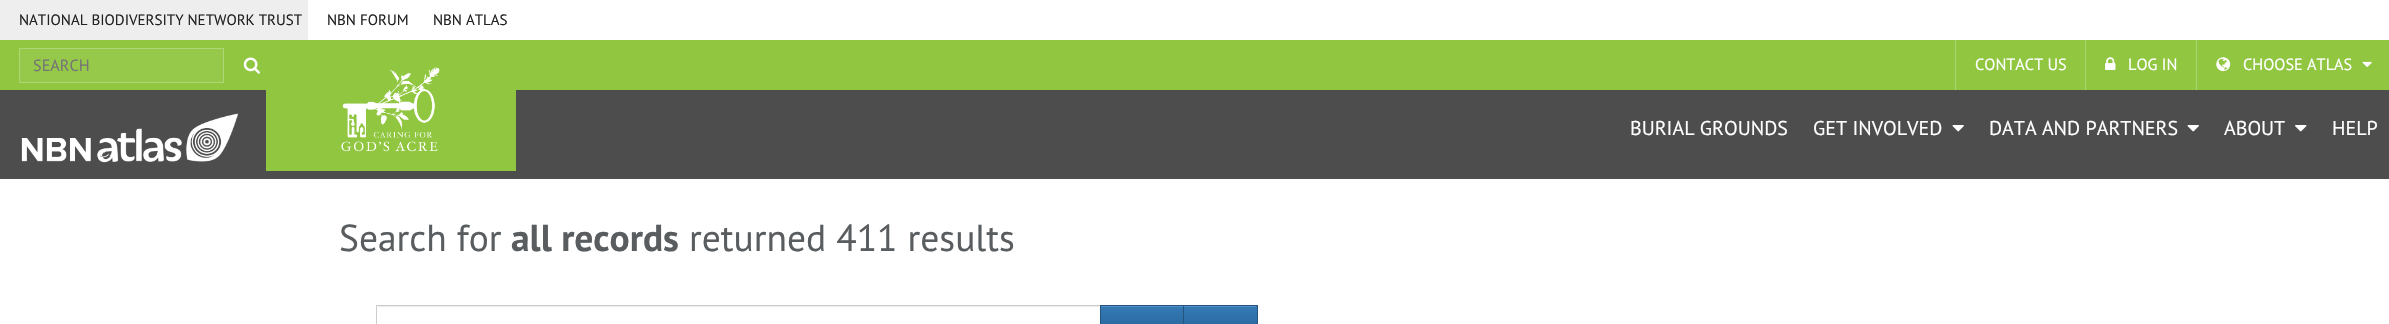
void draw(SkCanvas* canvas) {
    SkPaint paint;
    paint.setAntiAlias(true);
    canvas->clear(0xFFFFFFFF);
    paint.setColor(0xFFEEEEEE);
    canvas->drawRect(SkRect::MakeXYWH(0, 0, 308, 40), paint);
    SkFont font1(fontMgr->matchFamilyStyle("PT Sans", SkFontStyle::Normal()), 15);
    font1.setSubpixel(true);
    paint.setColor(0xFF222222);
    canvas->drawString("NATIONAL BIODIVERSITY NETWORK TRUST", 19, 25, font1, paint);
    canvas->drawString("NBN FORUM", 327, 25, font1, paint);
    canvas->drawString("NBN ATLAS", 433, 25, font1, paint);
    paint.setColor(0xFF90C640);
    canvas->drawRect(SkRect::MakeXYWH(0, 40, 2389, 50), paint);
    paint.setColor(0xFF96C94A);
    canvas->drawRect(SkRect::MakeXYWH(19.5f, 48.5f, 204, 34), paint);
    paint.setStyle(SkPaint::kStroke_Style);
    paint.setStrokeWidth(1);
    paint.setColor(0xFFB0D777);
    canvas->drawRect(SkRect::MakeXYWH(19.5f, 48.5f, 204, 34), paint);
    SkFont font2(fontMgr->matchFamilyStyle("PT Sans", SkFontStyle::Normal()), 16.25f);
    font2.setSubpixel(true);
    paint.setStyle(SkPaint::kFill_Style);
    paint.setColor(0xFF757575);
    canvas->drawString("SEARCH", 33, 71, font2, paint);
    canvas->drawImageRect(SkImages::DeferredFromEncodedData(SkData::MakeFromFileName("img1.png")), SkRect::MakeXYWH(243, 57, 17, 17), SkSamplingOptions());
    paint.setColor(0xFFACD470);
    canvas->drawRect(SkRect::MakeXYWH(1955, 40, 1, 50), paint);
    paint.setColor(0xFFFFFFFF);
    canvas->drawString("CONTACT US", 1975, 70, font2, paint);
    paint.setColor(0xFFACD470);
    canvas->drawRect(SkRect::MakeXYWH(2085, 40, 1, 50), paint);
    canvas->drawImageRect(SkImages::DeferredFromEncodedData(SkData::MakeFromFileName("img2.png")), SkRect::MakeXYWH(2105, 57, 11, 13), SkSamplingOptions());
    paint.setColor(0xFFFFFFFF);
    canvas->drawString("LOG IN", 2128, 70, font2, paint);
    paint.setColor(0xFFACD470);
    canvas->drawRect(SkRect::MakeXYWH(2196, 40, 1, 50), paint);
    canvas->drawImageRect(SkImages::DeferredFromEncodedData(SkData::MakeFromFileName("img3.png")), SkRect::MakeXYWH(2216, 57, 15, 15), SkSamplingOptions());
    paint.setColor(0xFFFFFFFF);
    canvas->drawString("CHOOSE ATLAS", 2243, 70, font2, paint);
    canvas->drawImageRect(SkImages::DeferredFromEncodedData(SkData::MakeFromFileName("img4.png")), SkRect::MakeXYWH(2362, 61, 10, 6), SkSamplingOptions());
    paint.setColor(0xFF4D4D4D);
    canvas->drawRect(SkRect::MakeXYWH(0, 90, 2389, 89), paint);
    canvas->drawImageRect(SkImages::DeferredFromEncodedData(SkData::MakeFromFileName("img5.png")), SkRect::MakeXYWH(21, 113, 217, 50), SkSamplingOptions());
    paint.setColor(0xFF90C640);
    canvas->drawRect(SkRect::MakeXYWH(266, 90, 250, 81), paint);
    canvas->drawImageRect(SkImages::DeferredFromEncodedData(SkData::MakeFromFileName("img6.png")), SkRect::MakeXYWH(341, 66, 99, 86), SkSamplingOptions());
    SkFont font3(fontMgr->matchFamilyStyle("PT Sans", SkFontStyle::Normal()), 20);
    font3.setSubpixel(true);
    paint.setColor(0xFFFFFFFF);
    canvas->drawString("BURIAL GROUNDS", 1630, 135, font3, paint);
    canvas->drawString("GET INVOLVED", 1813, 135, font3, paint);
    canvas->drawImageRect(SkImages::DeferredFromEncodedData(SkData::MakeFromFileName("img7.png")), SkRect::MakeXYWH(1952, 125, 12, 7), SkSamplingOptions());
    canvas->drawString("DATA AND PARTNERS", 1989, 135, font3, paint);
    canvas->drawImageRect(SkImages::DeferredFromEncodedData(SkData::MakeFromFileName("img7.png")), SkRect::MakeXYWH(2187, 125, 12, 7), SkSamplingOptions());
    canvas->drawString("ABOUT", 2224, 135, font3, paint);
    canvas->drawImageRect(SkImages::DeferredFromEncodedData(SkData::MakeFromFileName("img8.png")), SkRect::MakeXYWH(2295, 125, 12, 7), SkSamplingOptions());
    canvas->drawString("HELP", 2332, 135, font3, paint);
    SkFont font4(fontMgr->matchFamilyStyle("PT Sans", SkFontStyle::Normal()), 37.5f);
    font4.setSubpixel(true);
    paint.setColor(0xFF595D5F);
    canvas->drawString("Search for", 339, 251, font4, paint);
    SkFont font5(fontMgr->matchFamilyStyle("PT Sans", SkFontStyle::Bold()), 37.5f);
    font5.setSubpixel(true);
    canvas->drawString("all records", 511, 251, font5, paint);
    canvas->drawString("returned 411 results", 689, 251, font4, paint);
    paint.setColor(0xFFECECEC);
    canvas->drawRect(SkRect::MakeXYWH(378, 306, 722, 1), paint);
    paint.setStyle(SkPaint::kStroke_Style);
    paint.setColor(0xFFCCCCCC);
    canvas->drawRect(SkRect::MakeXYWH(376.5f, 305.5f, 724, 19), paint);
    paint.setStyle(SkPaint::kFill_Style);
    {
        const SkColor colors[] = {0xFF337AB7, 0xFF265A88};
        const float stops[] = {0, 1};
        const SkPoint ends[] = {{1142, 306}, {1142, 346}};
        paint.setShader(SkGradientShader::MakeLinear(ends, colors, stops, 2, SkTileMode::kClamp));
        paint.setAlpha(255);
    }
    canvas->drawRect(SkRect::MakeXYWH(1101, 307, 82, 17), paint);
    paint.setShader(nullptr);
    paint.setColor(0xFF528EC1);
    canvas->drawRect(SkRect::MakeXYWH(1101, 306, 82, 1), paint);
    paint.setStyle(SkPaint::kStroke_Style);
    paint.setColor(0xFF245580);
    canvas->drawRect(SkRect::MakeXYWH(1100.5f, 305.5f, 83, 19), paint);
    paint.setStyle(SkPaint::kFill_Style);
    {
        const SkColor colors[] = {0xFF337AB7, 0xFF265A88};
        const float stops[] = {0, 1};
        const SkPoint ends[] = {{1220, 306}, {1220, 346}};
        paint.setShader(SkGradientShader::MakeLinear(ends, colors, stops, 2, SkTileMode::kClamp));
        paint.setAlpha(255);
    }
    canvas->drawRect(SkRect::MakeXYWH(1184, 306, 73, 18), paint);
    paint.setShader(nullptr);
    paint.setColor(0xFF528EC1);
    canvas->drawRect(SkRect::MakeXYWH(1184, 306, 72, 1), paint);
    paint.setStyle(SkPaint::kStroke_Style);
    paint.setColor(0xFF245580);
    canvas->drawRect(SkRect::MakeXYWH(1183.5f, 305.5f, 74, 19), paint);
}
